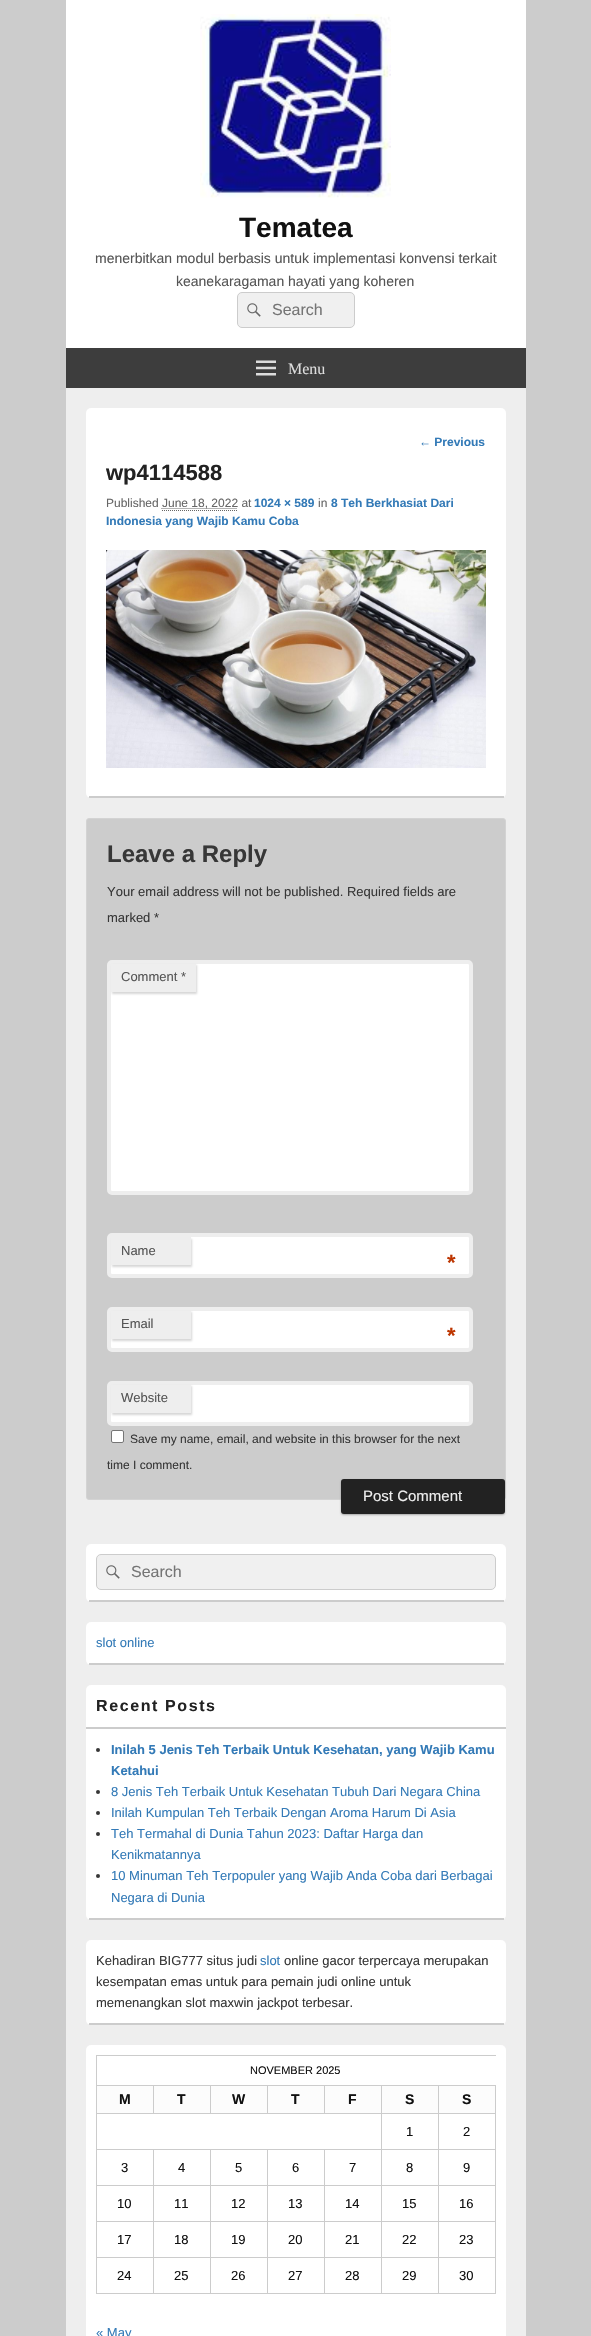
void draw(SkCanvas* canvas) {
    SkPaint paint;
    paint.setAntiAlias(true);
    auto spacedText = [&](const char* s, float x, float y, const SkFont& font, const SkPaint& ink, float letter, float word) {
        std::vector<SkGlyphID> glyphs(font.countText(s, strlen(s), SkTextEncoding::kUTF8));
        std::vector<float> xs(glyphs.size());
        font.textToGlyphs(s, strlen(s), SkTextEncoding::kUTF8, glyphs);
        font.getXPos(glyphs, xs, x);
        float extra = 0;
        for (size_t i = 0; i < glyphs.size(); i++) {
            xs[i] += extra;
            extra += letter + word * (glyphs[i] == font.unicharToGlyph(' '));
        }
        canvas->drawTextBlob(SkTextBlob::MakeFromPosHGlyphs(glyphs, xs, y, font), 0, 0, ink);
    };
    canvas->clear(0xFFCCCCCC);
    paint.setColor(0xFFEEEEEE);
    canvas->drawRect(SkRect::MakeXYWH(66, 388, 460, 1948), paint);
    paint.setColor(0xFFFFFFFF);
    canvas->drawRect(SkRect::MakeXYWH(66, 0, 460, 348), paint);
    canvas->drawImageRect(SkImages::DeferredFromEncodedData(SkData::MakeFromFileName("img1.png")), SkRect::MakeXYWH(200, 14, 191, 184), SkSamplingOptions());
    SkFont font1(fontMgr->matchFamilyStyle("Liberation Sans", SkFontStyle::Bold()), 28);
    font1.setSubpixel(true);
    paint.setColor(0xFF111111);
    canvas->drawString("Tematea", 239, 237, font1, paint);
    SkFont font2(fontMgr->matchFamilyStyle("Liberation Sans", SkFontStyle::Normal()), 14);
    font2.setSubpixel(true);
    paint.setColor(0xFF555555);
    canvas->drawString("menerbitkan modul berbasis untuk implementasi konvensi terkait", 95, 263, font2, paint);
    canvas->drawString("keanekaragaman hayati yang koheren", 176, 286, font2, paint);
    paint.setColor(0xFFF0F0F0);
    canvas->drawRoundRect(SkRect::MakeXYWH(237.5f, 292.5f, 117, 35), 4.5f, 4.5f, paint);
    paint.setStyle(SkPaint::kStroke_Style);
    paint.setStrokeWidth(1);
    paint.setColor(0xFFCCCCCC);
    canvas->drawRoundRect(SkRect::MakeXYWH(237.5f, 292.5f, 117, 35), 4.5f, 4.5f, paint);
    canvas->drawImageRect(SkImages::DeferredFromEncodedData(SkData::MakeFromFileName("img2.png")), SkRect::MakeXYWH(247, 303, 14, 14), SkSamplingOptions());
    SkFont font3(fontMgr->matchFamilyStyle("Liberation Sans", SkFontStyle::Normal()), 16);
    font3.setSubpixel(true);
    paint.setStyle(SkPaint::kFill_Style);
    paint.setColor(0xFF757575);
    canvas->drawString("Search", 272, 315, font3, paint);
    paint.setColor(0xFF3D3D3D);
    canvas->drawRect(SkRect::MakeXYWH(66, 348, 460, 40), paint);
    canvas->drawImageRect(SkImages::DeferredFromEncodedData(SkData::MakeFromFileName("img3.png")), SkRect::MakeXYWH(256, 360, 20, 16), SkSamplingOptions());
    SkFont font4(fontMgr->matchFamilyStyle("Liberation Serif", SkFontStyle::Normal()), 16);
    font4.setSubpixel(true);
    paint.setColor(0xFFDDDDDD);
    canvas->drawString("Menu", 288, 374, font4, paint);
    paint.setColor(0xFFFFFFFF);
    canvas->drawRoundRect(SkRect::MakeXYWH(86, 408, 420, 390), 5, 5, paint);
    SkFont font5(fontMgr->matchFamilyStyle("Liberation Sans", SkFontStyle::Bold()), 12);
    font5.setSubpixel(true);
    paint.setColor(0xFF337AB7);
    canvas->drawString("← Previous", 419, 446, font5, paint);
    paint.setColor(0xFFCCCCCC);
    canvas->drawRect(SkRect::MakeXYWH(89, 796, 415, 2), paint);
    SkFont font6(fontMgr->matchFamilyStyle("Liberation Sans", SkFontStyle::Bold()), 22);
    font6.setSubpixel(true);
    paint.setColor(0xFF222222);
    canvas->drawString("wp4114588", 106, 480, font6, paint);
    SkFont font7(fontMgr->matchFamilyStyle("Liberation Sans", SkFontStyle::Normal()), 12);
    font7.setSubpixel(true);
    paint.setColor(0xFF666666);
    canvas->drawString("Published", 106, 507, font7, paint);
    paint.setStyle(SkPaint::kStroke_Style);
    paint.setPathEffect(SkDashPathEffect::Make({{1, 1}}, 0));
    canvas->drawPath(SkPathBuilder().moveTo(161.5f, 508.5f).lineTo(237.5f, 508.5f).detach(), paint);
    paint.setPathEffect(nullptr);
    paint.setStyle(SkPaint::kFill_Style);
    canvas->drawString("June 18, 2022 at", 162, 507, font7, paint);
    paint.setStyle(SkPaint::kStroke_Style);
    paint.setPathEffect(SkDashPathEffect::Make({{1, 1}}, 0));
    canvas->drawPath(SkPathBuilder().moveTo(162, 510.5f).lineTo(238, 510.5f).detach(), paint);
    paint.setPathEffect(nullptr);
    paint.setStyle(SkPaint::kFill_Style);
    paint.setColor(0xFF337AB7);
    canvas->drawString("1024 × 589", 254, 507, font5, paint);
    paint.setColor(0xFF666666);
    canvas->drawString("in", 318, 507, font7, paint);
    paint.setColor(0xFF337AB7);
    canvas->drawString("8 Teh Berkhasiat Dari", 331, 507, font5, paint);
    canvas->drawString("Indonesia yang Wajib Kamu Coba", 106, 525, font5, paint);
    canvas->drawImageRect(SkImages::DeferredFromEncodedData(SkData::MakeFromFileName("img4.png")), SkRect::MakeXYWH(106, 550, 380, 218), SkSamplingOptions());
    paint.setColor(0xFFCCCCCC);
    canvas->drawRoundRect(SkRect::MakeXYWH(86.5f, 818.5f, 419, 681), 2.5f, 2.5f, paint);
    paint.setStyle(SkPaint::kStroke_Style);
    paint.setColor(0xFFD3D3D3);
    canvas->drawRoundRect(SkRect::MakeXYWH(86.5f, 818.5f, 419, 681), 2.5f, 2.5f, paint);
    SkFont font8(fontMgr->matchFamilyStyle("Liberation Sans", SkFontStyle::Bold()), 24);
    font8.setSubpixel(true);
    paint.setStyle(SkPaint::kFill_Style);
    paint.setColor(0xFF373737);
    canvas->drawString("Leave a Reply", 107, 862, font8, paint);
    SkFont font9(fontMgr->matchFamilyStyle("Liberation Sans", SkFontStyle::Normal()), 13);
    font9.setSubpixel(true);
    canvas->drawString("Your email address will not be published. Required fields are", 107, 896, font9, paint);
    canvas->drawString("marked *", 107, 922, font9, paint);
    paint.setColor(0xFFFFFFFF);
    canvas->drawRoundRect(SkRect::MakeXYWH(109, 962, 362, 231), 3, 3, paint);
    paint.setStyle(SkPaint::kStroke_Style);
    paint.setStrokeWidth(4);
    paint.setColor(0xFFEEEEEE);
    canvas->drawRoundRect(SkRect::MakeXYWH(109, 962, 362, 231), 3, 3, paint);
    paint.setStyle(SkPaint::kFill_Style);
    paint.setColor(0xCCCCCCCC);
    paint.setMaskFilter(SkMaskFilter::MakeBlur(kNormal_SkBlurStyle, 1));
    canvas->drawRect(SkRect::MakeXYWH(112, 965, 85, 29), paint);
    paint.setMaskFilter(nullptr);
    paint.setColor(0xFFEEEEEE);
    canvas->drawRect(SkRect::MakeXYWH(111, 964, 85, 28), paint);
    paint.setColor(0xFF555555);
    canvas->drawString("Comment *", 121, 981, font9, paint);
    paint.setColor(0xFFFFFFFF);
    canvas->drawRoundRect(SkRect::MakeXYWH(109, 1235, 362, 41), 3, 3, paint);
    paint.setStyle(SkPaint::kStroke_Style);
    paint.setColor(0xFFEEEEEE);
    canvas->drawRoundRect(SkRect::MakeXYWH(109, 1235, 362, 41), 3, 3, paint);
    paint.setStyle(SkPaint::kFill_Style);
    paint.setColor(0xCCCCCCCC);
    paint.setMaskFilter(SkMaskFilter::MakeBlur(kNormal_SkBlurStyle, 1));
    canvas->drawRect(SkRect::MakeXYWH(112, 1239, 80, 28), paint);
    paint.setMaskFilter(nullptr);
    paint.setColor(0xFFEEEEEE);
    canvas->drawRect(SkRect::MakeXYWH(111, 1237, 80, 28), paint);
    paint.setColor(0xFF555555);
    canvas->drawString("Name", 121, 1255, font9, paint);
    paint.setColor(0xFFBD3500);
    canvas->drawString("*", 447, 1270, font6, paint);
    paint.setColor(0xFFFFFFFF);
    canvas->drawRoundRect(SkRect::MakeXYWH(109, 1309, 362, 41), 3, 3, paint);
    paint.setStyle(SkPaint::kStroke_Style);
    paint.setColor(0xFFEEEEEE);
    canvas->drawRoundRect(SkRect::MakeXYWH(109, 1309, 362, 41), 3, 3, paint);
    paint.setStyle(SkPaint::kFill_Style);
    paint.setColor(0xCCCCCCCC);
    paint.setMaskFilter(SkMaskFilter::MakeBlur(kNormal_SkBlurStyle, 1));
    canvas->drawRect(SkRect::MakeXYWH(112, 1312, 80, 29), paint);
    paint.setMaskFilter(nullptr);
    paint.setColor(0xFFEEEEEE);
    canvas->drawRect(SkRect::MakeXYWH(111, 1311, 80, 28), paint);
    paint.setColor(0xFF555555);
    canvas->drawString("Email", 121, 1328, font9, paint);
    paint.setColor(0xFFBD3500);
    canvas->drawString("*", 447, 1343, font6, paint);
    paint.setColor(0xFFFFFFFF);
    canvas->drawRoundRect(SkRect::MakeXYWH(109, 1383, 362, 41), 3, 3, paint);
    paint.setStyle(SkPaint::kStroke_Style);
    paint.setColor(0xFFEEEEEE);
    canvas->drawRoundRect(SkRect::MakeXYWH(109, 1383, 362, 41), 3, 3, paint);
    paint.setStyle(SkPaint::kFill_Style);
    paint.setColor(0xCCCCCCCC);
    paint.setMaskFilter(SkMaskFilter::MakeBlur(kNormal_SkBlurStyle, 1));
    canvas->drawRect(SkRect::MakeXYWH(112, 1386, 80, 29), paint);
    paint.setMaskFilter(nullptr);
    paint.setColor(0xFFEEEEEE);
    canvas->drawRect(SkRect::MakeXYWH(111, 1385, 80, 28), paint);
    paint.setColor(0xFF555555);
    canvas->drawString("Website", 121, 1402, font9, paint);
    paint.setColor(0xFFFFFFFF);
    canvas->drawRoundRect(SkRect::MakeXYWH(111.5f, 1430.5f, 12, 12), 1.5f, 1.5f, paint);
    paint.setStyle(SkPaint::kStroke_Style);
    paint.setStrokeWidth(1);
    paint.setColor(0xFF767676);
    canvas->drawRoundRect(SkRect::MakeXYWH(111.5f, 1430.5f, 12, 12), 1.5f, 1.5f, paint);
    paint.setStyle(SkPaint::kFill_Style);
    paint.setColor(0xFF373737);
    canvas->drawString("Save my name, email, and website in this browser for the next", 130, 1443, font7, paint);
    canvas->drawString("time I comment.", 107, 1469, font7, paint);
    paint.setColor(0x4D000000);
    paint.setMaskFilter(SkMaskFilter::MakeBlur(kNormal_SkBlurStyle, 1));
    canvas->drawRoundRect(SkRect::MakeXYWH(341, 1480, 164, 35), 3, 3, paint);
    paint.setMaskFilter(nullptr);
    paint.setColor(0xFF222222);
    canvas->drawRoundRect(SkRect::MakeXYWH(341, 1479, 164, 35), 3, 3, paint);
    SkFont font10(fontMgr->matchFamilyStyle("Liberation Sans", SkFontStyle::Normal()), 15);
    font10.setSubpixel(true);
    paint.setColor(0xFFEEEEEE);
    canvas->drawString("Post Comment", 363, 1501, font10, paint);
    paint.setColor(0xFFFFFFFF);
    canvas->drawRoundRect(SkRect::MakeXYWH(86, 1544, 420, 58), 5, 5, paint);
    paint.setColor(0xFFCCCCCC);
    canvas->drawRect(SkRect::MakeXYWH(89, 1600, 415, 2), paint);
    paint.setColor(0xFFF0F0F0);
    canvas->drawRoundRect(SkRect::MakeXYWH(96.5f, 1554.5f, 399, 35), 4.5f, 4.5f, paint);
    paint.setStyle(SkPaint::kStroke_Style);
    paint.setColor(0xFFCCCCCC);
    canvas->drawRoundRect(SkRect::MakeXYWH(96.5f, 1554.5f, 399, 35), 4.5f, 4.5f, paint);
    canvas->drawImageRect(SkImages::DeferredFromEncodedData(SkData::MakeFromFileName("img2.png")), SkRect::MakeXYWH(106, 1565, 14, 14), SkSamplingOptions());
    paint.setStyle(SkPaint::kFill_Style);
    paint.setColor(0xFF757575);
    canvas->drawString("Search", 131, 1577, font3, paint);
    paint.setColor(0xFFFFFFFF);
    canvas->drawRoundRect(SkRect::MakeXYWH(86, 1622, 420, 43), 5, 5, paint);
    paint.setColor(0xFFCCCCCC);
    canvas->drawRect(SkRect::MakeXYWH(89, 1663, 415, 2), paint);
    paint.setColor(0xFF337AB7);
    canvas->drawString("slot online", 96, 1647, font9, paint);
    paint.setColor(0xFFFFFFFF);
    canvas->drawRoundRect(SkRect::MakeXYWH(86, 1685, 420, 235), 5, 5, paint);
    paint.setColor(0xFFCCCCCC);
    canvas->drawRect(SkRect::MakeXYWH(89, 1918, 415, 2), paint);
    canvas->drawRect(SkRect::MakeXYWH(86, 1727, 420, 2), paint);
    SkFont font11(fontMgr->matchFamilyStyle("Liberation Sans", SkFontStyle::Bold()), 16);
    font11.setSubpixel(true);
    paint.setColor(0xFF222222);
    spacedText("Recent Posts", 96, 1711, font11, paint, 1.6f, 0);
    paint.setColor(0xFF373737);
    canvas->drawCircle(98, 1750, 2, paint);
    SkFont font12(fontMgr->matchFamilyStyle("Liberation Sans", SkFontStyle::Bold()), 13);
    font12.setSubpixel(true);
    paint.setColor(0xFF337AB7);
    canvas->drawString("Inilah 5 Jenis Teh Terbaik Untuk Kesehatan, yang Wajib Kamu", 111, 1754, font12, paint);
    canvas->drawString("Ketahui", 111, 1775, font12, paint);
    paint.setColor(0xFF373737);
    canvas->drawCircle(98, 1792, 2, paint);
    paint.setColor(0xFF337AB7);
    canvas->drawString("8 Jenis Teh Terbaik Untuk Kesehatan Tubuh Dari Negara China", 111, 1796, font9, paint);
    paint.setColor(0xFF373737);
    canvas->drawCircle(98, 1813, 2, paint);
    paint.setColor(0xFF337AB7);
    canvas->drawString("Inilah Kumpulan Teh Terbaik Dengan Aroma Harum Di Asia", 111, 1817, font9, paint);
    paint.setColor(0xFF373737);
    canvas->drawCircle(98, 1834, 2, paint);
    paint.setColor(0xFF337AB7);
    canvas->drawString("Teh Termahal di Dunia Tahun 2023: Daftar Harga dan", 111, 1838, font9, paint);
    canvas->drawString("Kenikmatannya", 111, 1859, font9, paint);
    paint.setColor(0xFF373737);
    canvas->drawCircle(98, 1876, 2, paint);
    paint.setColor(0xFF337AB7);
    canvas->drawString("10 Minuman Teh Terpopuler yang Wajib Anda Coba dari Berbagai", 111, 1880, font9, paint);
    canvas->drawString("Negara di Dunia", 111, 1902, font9, paint);
    paint.setColor(0xFFFFFFFF);
    canvas->drawRoundRect(SkRect::MakeXYWH(86, 1940, 420, 85), 5, 5, paint);
    paint.setColor(0xFFCCCCCC);
    canvas->drawRect(SkRect::MakeXYWH(89, 2023, 415, 2), paint);
    paint.setColor(0xFF373737);
    canvas->drawString("Kehadiran BIG777 situs judi", 96, 1965, font9, paint);
    paint.setColor(0xFF337AB7);
    canvas->drawString("slot", 260, 1965, font9, paint);
    paint.setColor(0xFF373737);
    canvas->drawString("online gacor terpercaya merupakan", 284, 1965, font9, paint);
    canvas->drawString("kesempatan emas untuk para pemain judi online untuk", 96, 1986, font9, paint);
    canvas->drawString("memenangkan slot maxwin jackpot terbesar.", 96, 2007, font9, paint);
    paint.setColor(0xFFFFFFFF);
    canvas->drawRoundRect(SkRect::MakeXYWH(86, 2045, 420, 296), 5, 5, paint);
    paint.setColor(0xFFCCCCCC);
    canvas->drawRect(SkRect::MakeXYWH(96, 2055, 400, 1), paint);
    canvas->drawRect(SkRect::MakeXYWH(96, 2055, 1, 239), paint);
    SkFont font13(fontMgr->matchFamilyStyle("Liberation Sans", SkFontStyle::Normal()), 11);
    font13.setSubpixel(true);
    paint.setColor(0xFF111111);
    canvas->drawString("NOVEMBER 2025", 250, 2074, font13, paint);
    paint.setColor(0xFFFCFCFC);
    canvas->drawRect(SkRect::MakeXYWH(97, 2086, 56, 27), paint);
    paint.setColor(0xFFCCCCCC);
    canvas->drawRect(SkRect::MakeXYWH(97, 2085, 399, 1), paint);
    canvas->drawRect(SkRect::MakeXYWH(153, 2085, 1, 29), paint);
    canvas->drawRect(SkRect::MakeXYWH(97, 2113, 57, 1), paint);
    SkFont font14(fontMgr->matchFamilyStyle("Liberation Sans", SkFontStyle::Bold()), 14);
    font14.setSubpixel(true);
    paint.setColor(0xFF111111);
    canvas->drawString("M", 119, 2104, font14, paint);
    paint.setColor(0xFFFCFCFC);
    canvas->drawRect(SkRect::MakeXYWH(154, 2086, 56, 27), paint);
    paint.setColor(0xFFCCCCCC);
    canvas->drawRect(SkRect::MakeXYWH(210, 2085, 1, 29), paint);
    canvas->drawRect(SkRect::MakeXYWH(154, 2113, 57, 1), paint);
    paint.setColor(0xFF111111);
    canvas->drawString("T", 177, 2104, font14, paint);
    paint.setColor(0xFFFCFCFC);
    canvas->drawRect(SkRect::MakeXYWH(211, 2086, 56, 27), paint);
    paint.setColor(0xFFCCCCCC);
    canvas->drawRect(SkRect::MakeXYWH(267, 2085, 1, 29), paint);
    canvas->drawRect(SkRect::MakeXYWH(211, 2113, 57, 1), paint);
    paint.setColor(0xFF111111);
    canvas->drawString("W", 232, 2104, font14, paint);
    paint.setColor(0xFFFCFCFC);
    canvas->drawRect(SkRect::MakeXYWH(268, 2086, 56, 27), paint);
    paint.setColor(0xFFCCCCCC);
    canvas->drawRect(SkRect::MakeXYWH(324, 2085, 1, 29), paint);
    canvas->drawRect(SkRect::MakeXYWH(268, 2113, 57, 1), paint);
    paint.setColor(0xFF111111);
    canvas->drawString("T", 291, 2104, font14, paint);
    paint.setColor(0xFFFCFCFC);
    canvas->drawRect(SkRect::MakeXYWH(325, 2086, 56, 27), paint);
    paint.setColor(0xFFCCCCCC);
    canvas->drawRect(SkRect::MakeXYWH(381, 2085, 1, 209), paint);
    canvas->drawRect(SkRect::MakeXYWH(325, 2113, 57, 1), paint);
    paint.setColor(0xFF111111);
    canvas->drawString("F", 348, 2104, font14, paint);
    paint.setColor(0xFFFCFCFC);
    canvas->drawRect(SkRect::MakeXYWH(382, 2086, 56, 27), paint);
    paint.setColor(0xFFCCCCCC);
    canvas->drawRect(SkRect::MakeXYWH(438, 2085, 1, 209), paint);
    canvas->drawRect(SkRect::MakeXYWH(382, 2113, 57, 1), paint);
    paint.setColor(0xFF111111);
    canvas->drawString("S", 405, 2104, font14, paint);
    paint.setColor(0xFFFCFCFC);
    canvas->drawRect(SkRect::MakeXYWH(439, 2086, 56, 27), paint);
    paint.setColor(0xFFCCCCCC);
    canvas->drawRect(SkRect::MakeXYWH(495, 2085, 1, 209), paint);
    canvas->drawRect(SkRect::MakeXYWH(439, 2113, 57, 1), paint);
    paint.setColor(0xFF111111);
    canvas->drawString("S", 462, 2104, font14, paint);
    canvas->drawString("1", 406, 2136, font9, paint);
    canvas->drawString("2", 463, 2136, font9, paint);
    paint.setColor(0xFFCCCCCC);
    canvas->drawRect(SkRect::MakeXYWH(97, 2149, 399, 1), paint);
    canvas->drawRect(SkRect::MakeXYWH(153, 2150, 1, 144), paint);
    canvas->drawRect(SkRect::MakeXYWH(97, 2185, 57, 1), paint);
    paint.setColor(0xFF111111);
    canvas->drawString("3", 121, 2172, font9, paint);
    paint.setColor(0xFFCCCCCC);
    canvas->drawRect(SkRect::MakeXYWH(210, 2150, 1, 144), paint);
    canvas->drawRect(SkRect::MakeXYWH(154, 2185, 57, 1), paint);
    paint.setColor(0xFF111111);
    canvas->drawString("4", 178, 2172, font9, paint);
    paint.setColor(0xFFCCCCCC);
    canvas->drawRect(SkRect::MakeXYWH(267, 2150, 1, 144), paint);
    canvas->drawRect(SkRect::MakeXYWH(211, 2185, 57, 1), paint);
    paint.setColor(0xFF111111);
    canvas->drawString("5", 235, 2172, font9, paint);
    paint.setColor(0xFFCCCCCC);
    canvas->drawRect(SkRect::MakeXYWH(324, 2150, 1, 144), paint);
    canvas->drawRect(SkRect::MakeXYWH(268, 2185, 228, 1), paint);
    paint.setColor(0xFF111111);
    canvas->drawString("6", 292, 2172, font9, paint);
    canvas->drawString("7", 349, 2172, font9, paint);
    canvas->drawString("8", 406, 2172, font9, paint);
    canvas->drawString("9", 463, 2172, font9, paint);
    paint.setColor(0xFFCCCCCC);
    canvas->drawRect(SkRect::MakeXYWH(97, 2221, 399, 1), paint);
    paint.setColor(0xFF111111);
    canvas->drawString("10", 117, 2208, font9, paint);
    canvas->drawString("11", 174, 2208, font9, paint);
    canvas->drawString("12", 231, 2208, font9, paint);
    canvas->drawString("13", 288, 2208, font9, paint);
    canvas->drawString("14", 345, 2208, font9, paint);
    canvas->drawString("15", 402, 2208, font9, paint);
    canvas->drawString("16", 459, 2208, font9, paint);
    paint.setColor(0xFFCCCCCC);
    canvas->drawRect(SkRect::MakeXYWH(97, 2257, 399, 1), paint);
    paint.setColor(0xFF111111);
    canvas->drawString("17", 117, 2244, font9, paint);
    canvas->drawString("18", 174, 2244, font9, paint);
    canvas->drawString("19", 231, 2244, font9, paint);
    canvas->drawString("20", 288, 2244, font9, paint);
    canvas->drawString("21", 345, 2244, font9, paint);
    canvas->drawString("22", 402, 2244, font9, paint);
    canvas->drawString("23", 459, 2244, font9, paint);
    paint.setColor(0xFFCCCCCC);
    canvas->drawRect(SkRect::MakeXYWH(97, 2293, 399, 1), paint);
    paint.setColor(0xFF111111);
    canvas->drawString("24", 117, 2280, font9, paint);
    canvas->drawString("25", 174, 2280, font9, paint);
    canvas->drawString("26", 231, 2280, font9, paint);
    canvas->drawString("27", 288, 2280, font9, paint);
    canvas->drawString("28", 345, 2280, font9, paint);
    canvas->drawString("29", 402, 2280, font9, paint);
    canvas->drawString("30", 459, 2280, font9, paint);
    paint.setColor(0xFF337AB7);
    canvas->drawString("« May", 96, 2337, font9, paint);
}
